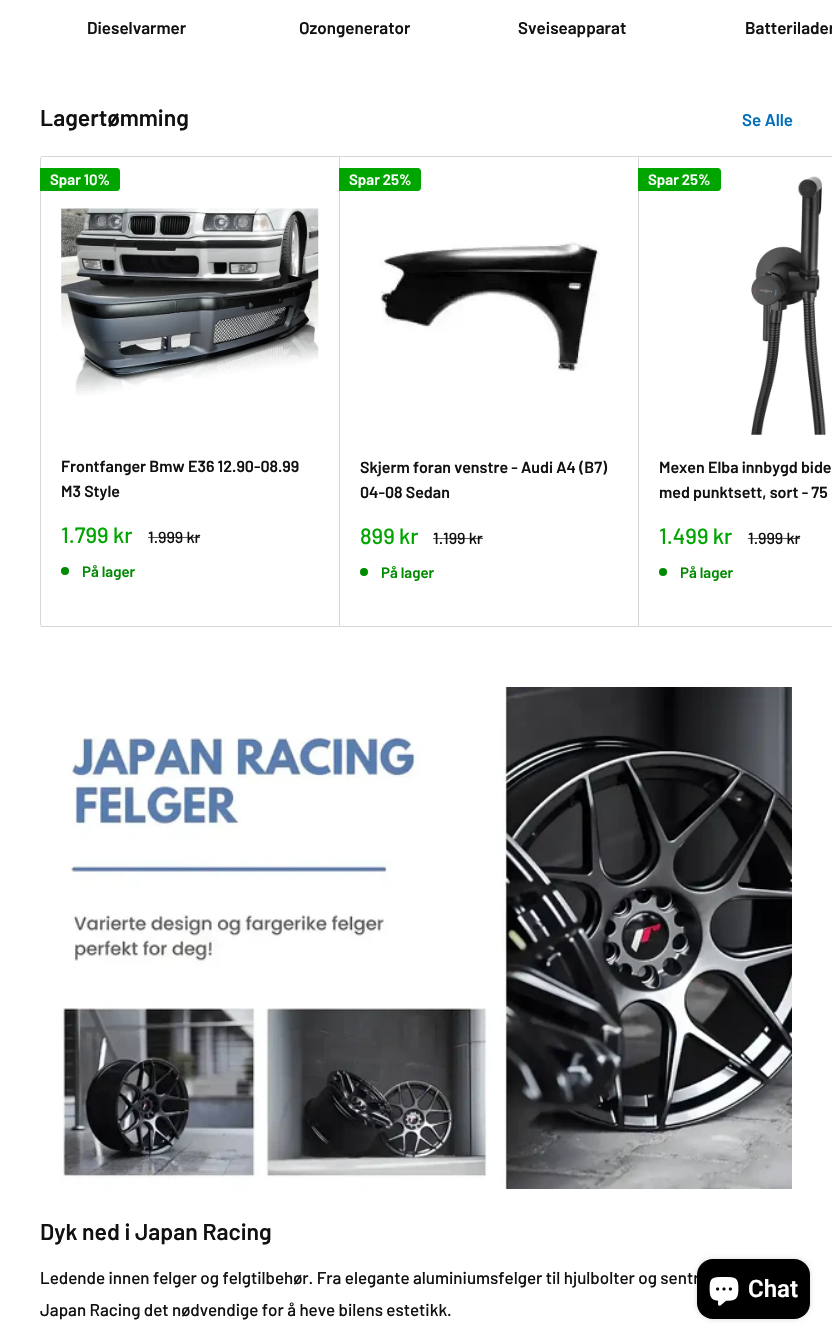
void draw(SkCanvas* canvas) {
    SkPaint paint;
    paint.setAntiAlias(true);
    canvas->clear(0xFFFFFFFF);
    paint.setColor(0xFFFBFAFB);
    canvas->drawRect(SkRect::MakeXYWH(142, 0, 3, 1), paint);
    SkFont font1(fontMgr->matchFamilyStyle("Barlow", SkFontStyle(600, SkFontStyle::kNormal_Width, SkFontStyle::kUpright_Slant)), 17);
    font1.setSubpixel(true);
    paint.setColor(0xFF111111);
    canvas->drawString("Dieselvarmer", 87, 34, font1, paint);
    canvas->drawString("Ozongenerator", 299, 34, font1, paint);
    canvas->drawString("Sveiseapparat", 518, 34, font1, paint);
    canvas->drawString("Batterilader", 745, 34, font1, paint);
    SkFont font2(fontMgr->matchFamilyStyle("Barlow", SkFontStyle(600, SkFontStyle::kNormal_Width, SkFontStyle::kUpright_Slant)), 23);
    font2.setSubpixel(true);
    canvas->drawString("Lagertømming", 40, 126, font2, paint);
    paint.setColor(0xFF036EB9);
    canvas->drawString("Se Alle", 742, 126, font1, paint);
    paint.setStyle(SkPaint::kStroke_Style);
    paint.setStrokeWidth(1);
    paint.setColor(0xFFD7D7D7);
    canvas->drawPath(SkPathBuilder().moveTo(43, 156.5f).lineTo(339.5f, 156.5f).lineTo(339.5f, 626.5f).lineTo(43, 626.5f).cubicTo(41.5f, 626.5f, 40.5f, 625.5f, 40.5f, 624).lineTo(40.5f, 159).cubicTo(40.5f, 157.5f, 41.5f, 156.5f, 43, 156.5f).close().detach(), paint);
    paint.setStyle(SkPaint::kFill_Style);
    paint.setColor(0xFF00A500);
    canvas->drawPath(SkPathBuilder().moveTo(40, 168).lineTo(117, 168).cubicTo(118.5f, 168, 120, 169.5f, 120, 171).lineTo(120, 188).cubicTo(120, 189.5f, 118.5f, 191, 117, 191).lineTo(40, 191).close().detach(), paint);
    SkFont font3(fontMgr->matchFamilyStyle("Barlow", SkFontStyle(600, SkFontStyle::kNormal_Width, SkFontStyle::kUpright_Slant)), 15);
    font3.setSubpixel(true);
    paint.setColor(0xFFFFFFFF);
    canvas->drawString("Spar 10%", 50, 185, font3, paint);
    canvas->drawImageRect(SkImages::DeferredFromEncodedData(SkData::MakeFromFileName("img1.png")), SkRect::MakeXYWH(61, 207, 258, 189), SkSamplingOptions());
    SkFont font4(fontMgr->matchFamilyStyle("Barlow", SkFontStyle(600, SkFontStyle::kNormal_Width, SkFontStyle::kUpright_Slant)), 16);
    font4.setSubpixel(true);
    paint.setColor(0xFF111111);
    canvas->drawString("Frontfanger Bmw E36 12.90-08.99", 61, 472, font4, paint);
    canvas->drawString("M3 Style", 61, 497, font4, paint);
    SkFont font5(fontMgr->matchFamilyStyle("Barlow", SkFontStyle(500, SkFontStyle::kNormal_Width, SkFontStyle::kUpright_Slant)), 22);
    font5.setSubpixel(true);
    paint.setColor(0xFF00A500);
    canvas->drawString("1.799 kr", 61, 543, font5, paint);
    SkFont font6(fontMgr->matchFamilyStyle("Barlow", SkFontStyle(500, SkFontStyle::kNormal_Width, SkFontStyle::kUpright_Slant)), 16);
    font6.setSubpixel(true);
    paint.setColor(0xFF111111);
    canvas->drawString("1.999 kr", 148, 543, font6, paint);
    paint.setColor(0xB3111111);
    canvas->drawRect(SkRect::MakeXYWH(148, 537, 52, 1), paint);
    paint.setColor(0xFF008A00);
    canvas->drawCircle(65, 571, 4, paint);
    canvas->drawString("På lager", 82, 577, font3, paint);
    paint.setColor(0xFFD7D7D7);
    canvas->drawRect(SkRect::MakeXYWH(41, 626, 2, 1), paint);
    canvas->drawRect(SkRect::MakeXYWH(340, 156, 492, 1), paint);
    canvas->drawRect(SkRect::MakeXYWH(638, 156, 1, 471), paint);
    canvas->drawRect(SkRect::MakeXYWH(340, 626, 492, 1), paint);
    paint.setColor(0xFF00A500);
    canvas->drawPath(SkPathBuilder().moveTo(339, 168).lineTo(418, 168).cubicTo(419.5f, 168, 421, 169.5f, 421, 171).lineTo(421, 188).cubicTo(421, 189.5f, 419.5f, 191, 418, 191).lineTo(339, 191).close().detach(), paint);
    paint.setColor(0xFFFFFFFF);
    canvas->drawString("Spar 25%", 349, 185, font3, paint);
    canvas->drawImageRect(SkImages::DeferredFromEncodedData(SkData::MakeFromFileName("img2.png")), SkRect::MakeXYWH(380, 241, 220, 132), SkSamplingOptions());
    paint.setColor(0xFF111111);
    canvas->drawString("Skjerm foran venstre - Audi A4 (B7)", 360, 473, font4, paint);
    canvas->drawString("04-08 Sedan", 360, 498, font4, paint);
    paint.setColor(0xFF00A500);
    canvas->drawString("899 kr", 360, 544, font5, paint);
    paint.setColor(0xFF111111);
    canvas->drawString("1.199 kr", 433, 544, font6, paint);
    paint.setColor(0xB3111111);
    canvas->drawRect(SkRect::MakeXYWH(433, 538, 50, 1), paint);
    paint.setColor(0xFF008A00);
    canvas->drawCircle(364, 572, 4, paint);
    canvas->drawString("På lager", 381, 578, font3, paint);
    paint.setColor(0xFF00A500);
    canvas->drawPath(SkPathBuilder().moveTo(638, 168).lineTo(718, 168).cubicTo(719.5f, 168, 721, 169.5f, 721, 171).lineTo(721, 188).cubicTo(721, 189.5f, 719.5f, 191, 718, 191).lineTo(638, 191).close().detach(), paint);
    paint.setColor(0xFFFFFFFF);
    canvas->drawString("Spar 25%", 648, 185, font3, paint);
    canvas->drawImageRect(SkImages::DeferredFromEncodedData(SkData::MakeFromFileName("img3.png")), SkRect::MakeXYWH(751, 176, 75, 259), SkSamplingOptions());
    paint.setColor(0xFF111111);
    canvas->drawString("Mexen Elba innbygd bide", 659, 473, font4, paint);
    canvas->drawString("med punktsett, sort - 75", 659, 498, font4, paint);
    paint.setColor(0xFF00A500);
    canvas->drawString("1.499 kr", 659, 544, font5, paint);
    paint.setColor(0xFF111111);
    canvas->drawString("1.999 kr", 748, 544, font6, paint);
    paint.setColor(0xB3111111);
    canvas->drawRect(SkRect::MakeXYWH(748, 538, 52, 1), paint);
    paint.setColor(0xFF008A00);
    canvas->drawCircle(663, 572, 4, paint);
    canvas->drawString("På lager", 680, 578, font3, paint);
    canvas->drawImageRect(SkImages::DeferredFromEncodedData(SkData::MakeFromFileName("img4.png")), SkRect::MakeXYWH(60, 687, 732, 502), SkSamplingOptions());
    paint.setColor(0xFF111111);
    canvas->drawString("Dyk ned i Japan Racing", 40, 1240, font2, paint);
    SkFont font7(fontMgr->matchFamilyStyle("Barlow", SkFontStyle(500, SkFontStyle::kNormal_Width, SkFontStyle::kUpright_Slant)), 17);
    font7.setSubpixel(true);
    canvas->drawString("Ledende innen felger og felgtilbehør. Fra elegante aluminiumsfelger til hjulbolter og sentr", 40, 1284, font7, paint);
    canvas->drawString("Japan Racing det nødvendige for å heve bilens estetikk.", 40, 1316, font7, paint);
    paint.setColor(0x26000000);
    paint.setMaskFilter(SkMaskFilter::MakeBlur(kNormal_SkBlurStyle, 2.5f));
    canvas->drawRoundRect(SkRect::MakeXYWH(697, 1259, 113, 60), 16, 16, paint);
    paint.setMaskFilter(nullptr);
    paint.setColor(0xFF000000);
    canvas->drawRoundRect(SkRect::MakeXYWH(697, 1259, 113, 60), 16, 16, paint);
    canvas->drawImageRect(SkImages::DeferredFromEncodedData(SkData::MakeFromFileName("img5.png")), SkRect::MakeXYWH(709, 1277, 30, 29), SkSamplingOptions());
    SkFont font8(fontMgr->matchFamilyStyle("Roboto", SkFontStyle(600, SkFontStyle::kNormal_Width, SkFontStyle::kUpright_Slant)), 24);
    font8.setSubpixel(true);
    paint.setColor(0xFFFFFFFF);
    canvas->drawString("Chat", 748, 1297, font8, paint);
}
